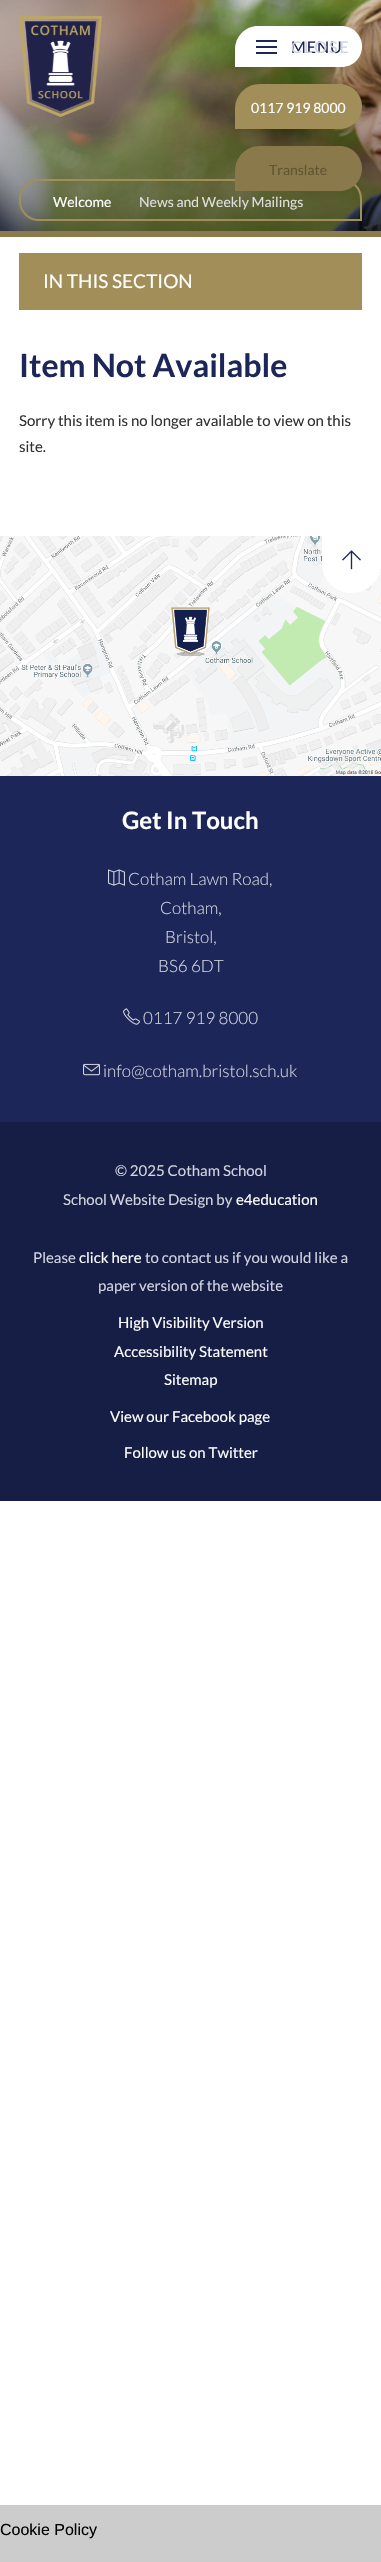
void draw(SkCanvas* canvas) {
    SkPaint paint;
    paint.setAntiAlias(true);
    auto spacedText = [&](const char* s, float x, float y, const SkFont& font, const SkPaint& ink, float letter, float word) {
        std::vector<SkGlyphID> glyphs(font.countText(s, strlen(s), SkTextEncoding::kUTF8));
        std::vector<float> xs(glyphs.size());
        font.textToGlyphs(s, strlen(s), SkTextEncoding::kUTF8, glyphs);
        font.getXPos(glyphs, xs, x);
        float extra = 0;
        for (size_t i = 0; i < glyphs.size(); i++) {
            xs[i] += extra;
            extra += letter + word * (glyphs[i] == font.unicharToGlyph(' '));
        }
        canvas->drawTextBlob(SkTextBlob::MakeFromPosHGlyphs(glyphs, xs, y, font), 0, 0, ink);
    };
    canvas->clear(0xFFCCCCCC);
    paint.setColor(0xFFFFFFFF);
    canvas->drawRect(SkRect::MakeXYWH(0, 237, 381, 2268), paint);
    canvas->drawImageRect(SkImages::DeferredFromEncodedData(SkData::MakeFromFileName("img2.png")), SkRect::MakeXYWH(0, 0, 381, 231), SkSamplingOptions());
    canvas->drawImageRect(SkImages::DeferredFromEncodedData(SkData::MakeFromFileName("img3.png")), SkRect::MakeXYWH(0, 0, 271, 231), SkSamplingOptions());
    canvas->drawImageRect(SkImages::DeferredFromEncodedData(SkData::MakeFromFileName("img1.png")), SkRect::MakeXYWH(19, 16, 83, 101), SkSamplingOptions());
    canvas->drawPath(SkPathBuilder().moveTo(258, 26).lineTo(341.5f, 26).cubicTo(353, 26, 362, 35, 362, 46.5f).cubicTo(362, 58, 353, 67, 341.5f, 67).lineTo(235, 67).lineTo(235, 49).cubicTo(235, 36.5f, 245.5f, 26, 258, 26).close().detach(), paint);
    paint.setColor(0xFF1D2658);
    canvas->drawRect(SkRect::MakeXYWH(256, 46, 21, 2), paint);
    canvas->drawRect(SkRect::MakeXYWH(256, 40, 21, 2), paint);
    canvas->drawRect(SkRect::MakeXYWH(256, 52, 21, 2), paint);
    SkFont font1(fontMgr->matchFamilyStyle("Lato", SkFontStyle::Normal()), 16);
    font1.setSubpixel(true);
    spacedText("MENU", 291, 53, font1, paint, 1, 0);
    paint.setColor(0xFFD2D4DE);
    spacedText("CLOSE", 291, 53, font1, paint, 2, 0);
    paint.setColor(0xFFA18E59);
    canvas->drawPath(SkPathBuilder().moveTo(260, 84).lineTo(339.5f, 84).cubicTo(352, 84, 362, 94, 362, 106.5f).cubicTo(362, 119, 352, 129, 339.5f, 129).lineTo(235, 129).lineTo(235, 109).cubicTo(235, 95, 246, 84, 260, 84).close().detach(), paint);
    SkFont font2(fontMgr->matchFamilyStyle("Lato", SkFontStyle::Normal()), 14);
    font2.setSubpixel(true);
    paint.setColor(0xFFFFFFFF);
    canvas->drawString("0117 919 8000", 251, 113, font2, paint);
    paint.setStyle(SkPaint::kStroke_Style);
    paint.setStrokeWidth(2);
    paint.setColor(0xFFA18E59);
    canvas->drawPath(SkPathBuilder().moveTo(39, 180).lineTo(342, 180).cubicTo(352.5f, 180, 361, 188.5f, 361, 199).lineTo(361, 220).lineTo(39, 220).cubicTo(28.5f, 220, 20, 211.5f, 20, 201).lineTo(20, 199).cubicTo(20, 188.5f, 28.5f, 180, 39, 180).close().detach(), paint);
    paint.setStyle(SkPaint::kFill_Style);
    paint.setColor(0xFF8A794B);
    canvas->drawPath(SkPathBuilder().moveTo(260, 146).lineTo(339.5f, 146).cubicTo(352, 146, 362, 156, 362, 168.5f).cubicTo(362, 181, 352, 191, 339.5f, 191).lineTo(235, 191).lineTo(235, 171).cubicTo(235, 157, 246, 146, 260, 146).close().detach(), paint);
    paint.setColor(0xFF615430);
    canvas->drawString("Translate", 269, 175, font2, paint);
    paint.setColor(0xFF8A7A4C);
    canvas->drawRect(SkRect::MakeXYWH(0, 231, 381, 6), paint);
    paint.setColor(0xFFFFFFFF);
    canvas->drawString("Welcome", 53, 207, font2, paint);
    paint.setColor(0xFFDFDFDF);
    canvas->drawString("News and Weekly Mailings", 139, 207, font2, paint);
    paint.setColor(0xFFA18E59);
    canvas->drawRect(SkRect::MakeXYWH(19, 253, 343, 57), paint);
    SkFont font3(fontMgr->matchFamilyStyle("Lato", SkFontStyle::Normal()), 19);
    font3.setSubpixel(true);
    paint.setColor(0xFFFFFFFF);
    canvas->drawString("IN THIS SECTION", 43, 288, font3, paint);
    SkFont font4(fontMgr->matchFamilyStyle("Lato", SkFontStyle::Bold()), 32);
    font4.setSubpixel(true);
    paint.setColor(0xFF1D2658);
    canvas->drawString("Item Not Available", 19, 377, font4, paint);
    SkFont font5(fontMgr->matchFamilyStyle("Lato", SkFontStyle::Normal()), 15);
    font5.setSubpixel(true);
    paint.setColor(0xFF323232);
    canvas->drawString("Sorry this item is no longer available to view on this", 19, 426, font5, paint);
    canvas->drawString("site.", 19, 452, font5, paint);
    paint.setColor(0xFF1D2658);
    canvas->drawRect(SkRect::MakeXYWH(0, 776, 381, 346), paint);
    canvas->drawImageRect(SkImages::DeferredFromEncodedData(SkData::MakeFromFileName("img4.png")), SkRect::MakeXYWH(0, 536, 381, 240), SkSamplingOptions());
    paint.setColor(0xFFFFFFFF);
    canvas->drawPath(SkPathBuilder().moveTo(322, 536).lineTo(381, 536).lineTo(381, 563.5f).cubicTo(381, 580, 368, 593, 351.5f, 593).cubicTo(335, 593, 322, 580, 322, 563.5f).close().detach(), paint);
    canvas->drawImageRect(SkImages::DeferredFromEncodedData(SkData::MakeFromFileName("img5.png")), SkRect::MakeXYWH(342, 550, 19, 20), SkSamplingOptions());
    SkFont font6(fontMgr->matchFamilyStyle("Lato", SkFontStyle::Bold()), 24);
    font6.setSubpixel(true);
    canvas->drawString("Get In Touch", 122, 829, font6, paint);
    canvas->drawImageRect(SkImages::DeferredFromEncodedData(SkData::MakeFromFileName("img6.png")), SkRect::MakeXYWH(108, 869, 17, 17), SkSamplingOptions());
    SkFont font7(fontMgr->matchFamilyStyle("Lato", SkFontStyle(300, SkFontStyle::kNormal_Width, SkFontStyle::kUpright_Slant)), 17);
    font7.setSubpixel(true);
    paint.setColor(0xFFD2D4DE);
    canvas->drawString("Cotham Lawn Road,", 128, 885, font7, paint);
    canvas->drawString("Cotham,", 160, 914, font7, paint);
    canvas->drawString("Bristol,", 165, 943, font7, paint);
    canvas->drawString("BS6 6DT", 158, 972, font7, paint);
    canvas->drawImageRect(SkImages::DeferredFromEncodedData(SkData::MakeFromFileName("img7.png")), SkRect::MakeXYWH(123, 1008, 17, 17), SkSamplingOptions());
    canvas->drawString("0117 919 8000", 143, 1024, font7, paint);
    canvas->drawImageRect(SkImages::DeferredFromEncodedData(SkData::MakeFromFileName("img8.png")), SkRect::MakeXYWH(83, 1063, 17, 13), SkSamplingOptions());
    canvas->drawString("info@cotham.bristol.sch.uk", 103, 1077, font7, paint);
    paint.setColor(0xFF161E46);
    canvas->drawRect(SkRect::MakeXYWH(0, 1122, 381, 379), paint);
    paint.setColor(0xFFD2D4DE);
    canvas->drawString("© 2025 Cotham School", 115, 1176, font5, paint);
    canvas->drawString("School Website Design by", 63, 1205, font5, paint);
    paint.setColor(0xFFFFFFFF);
    canvas->drawString("e4education", 236, 1205, font5, paint);
    paint.setColor(0xFFD2D4DE);
    canvas->drawString("Please", 33, 1263, font5, paint);
    paint.setColor(0xFFFFFFFF);
    canvas->drawString("click here", 79, 1263, font5, paint);
    paint.setColor(0xFFD2D4DE);
    canvas->drawString("to contact us if you would like a", 145, 1263, font5, paint);
    canvas->drawString("paper version of the website", 98, 1291, font5, paint);
    paint.setColor(0xFFFFFFFF);
    canvas->drawString("High Visibility Version", 118, 1328, font5, paint);
    canvas->drawString("Accessibility Statement", 114, 1357, font5, paint);
    canvas->drawString("Sitemap", 164, 1385, font5, paint);
    canvas->drawString("View our Facebook page", 110, 1422, font5, paint);
    canvas->drawString("Follow us on Twitter", 124, 1458, font5, paint);
    SkFont font8(fontMgr->matchFamilyStyle("Liberation Sans", SkFontStyle::Normal()), 16);
    font8.setSubpixel(true);
    paint.setColor(0xFF000000);
    canvas->drawString("Cookie Policy", 0, 2535, font8, paint);
}
